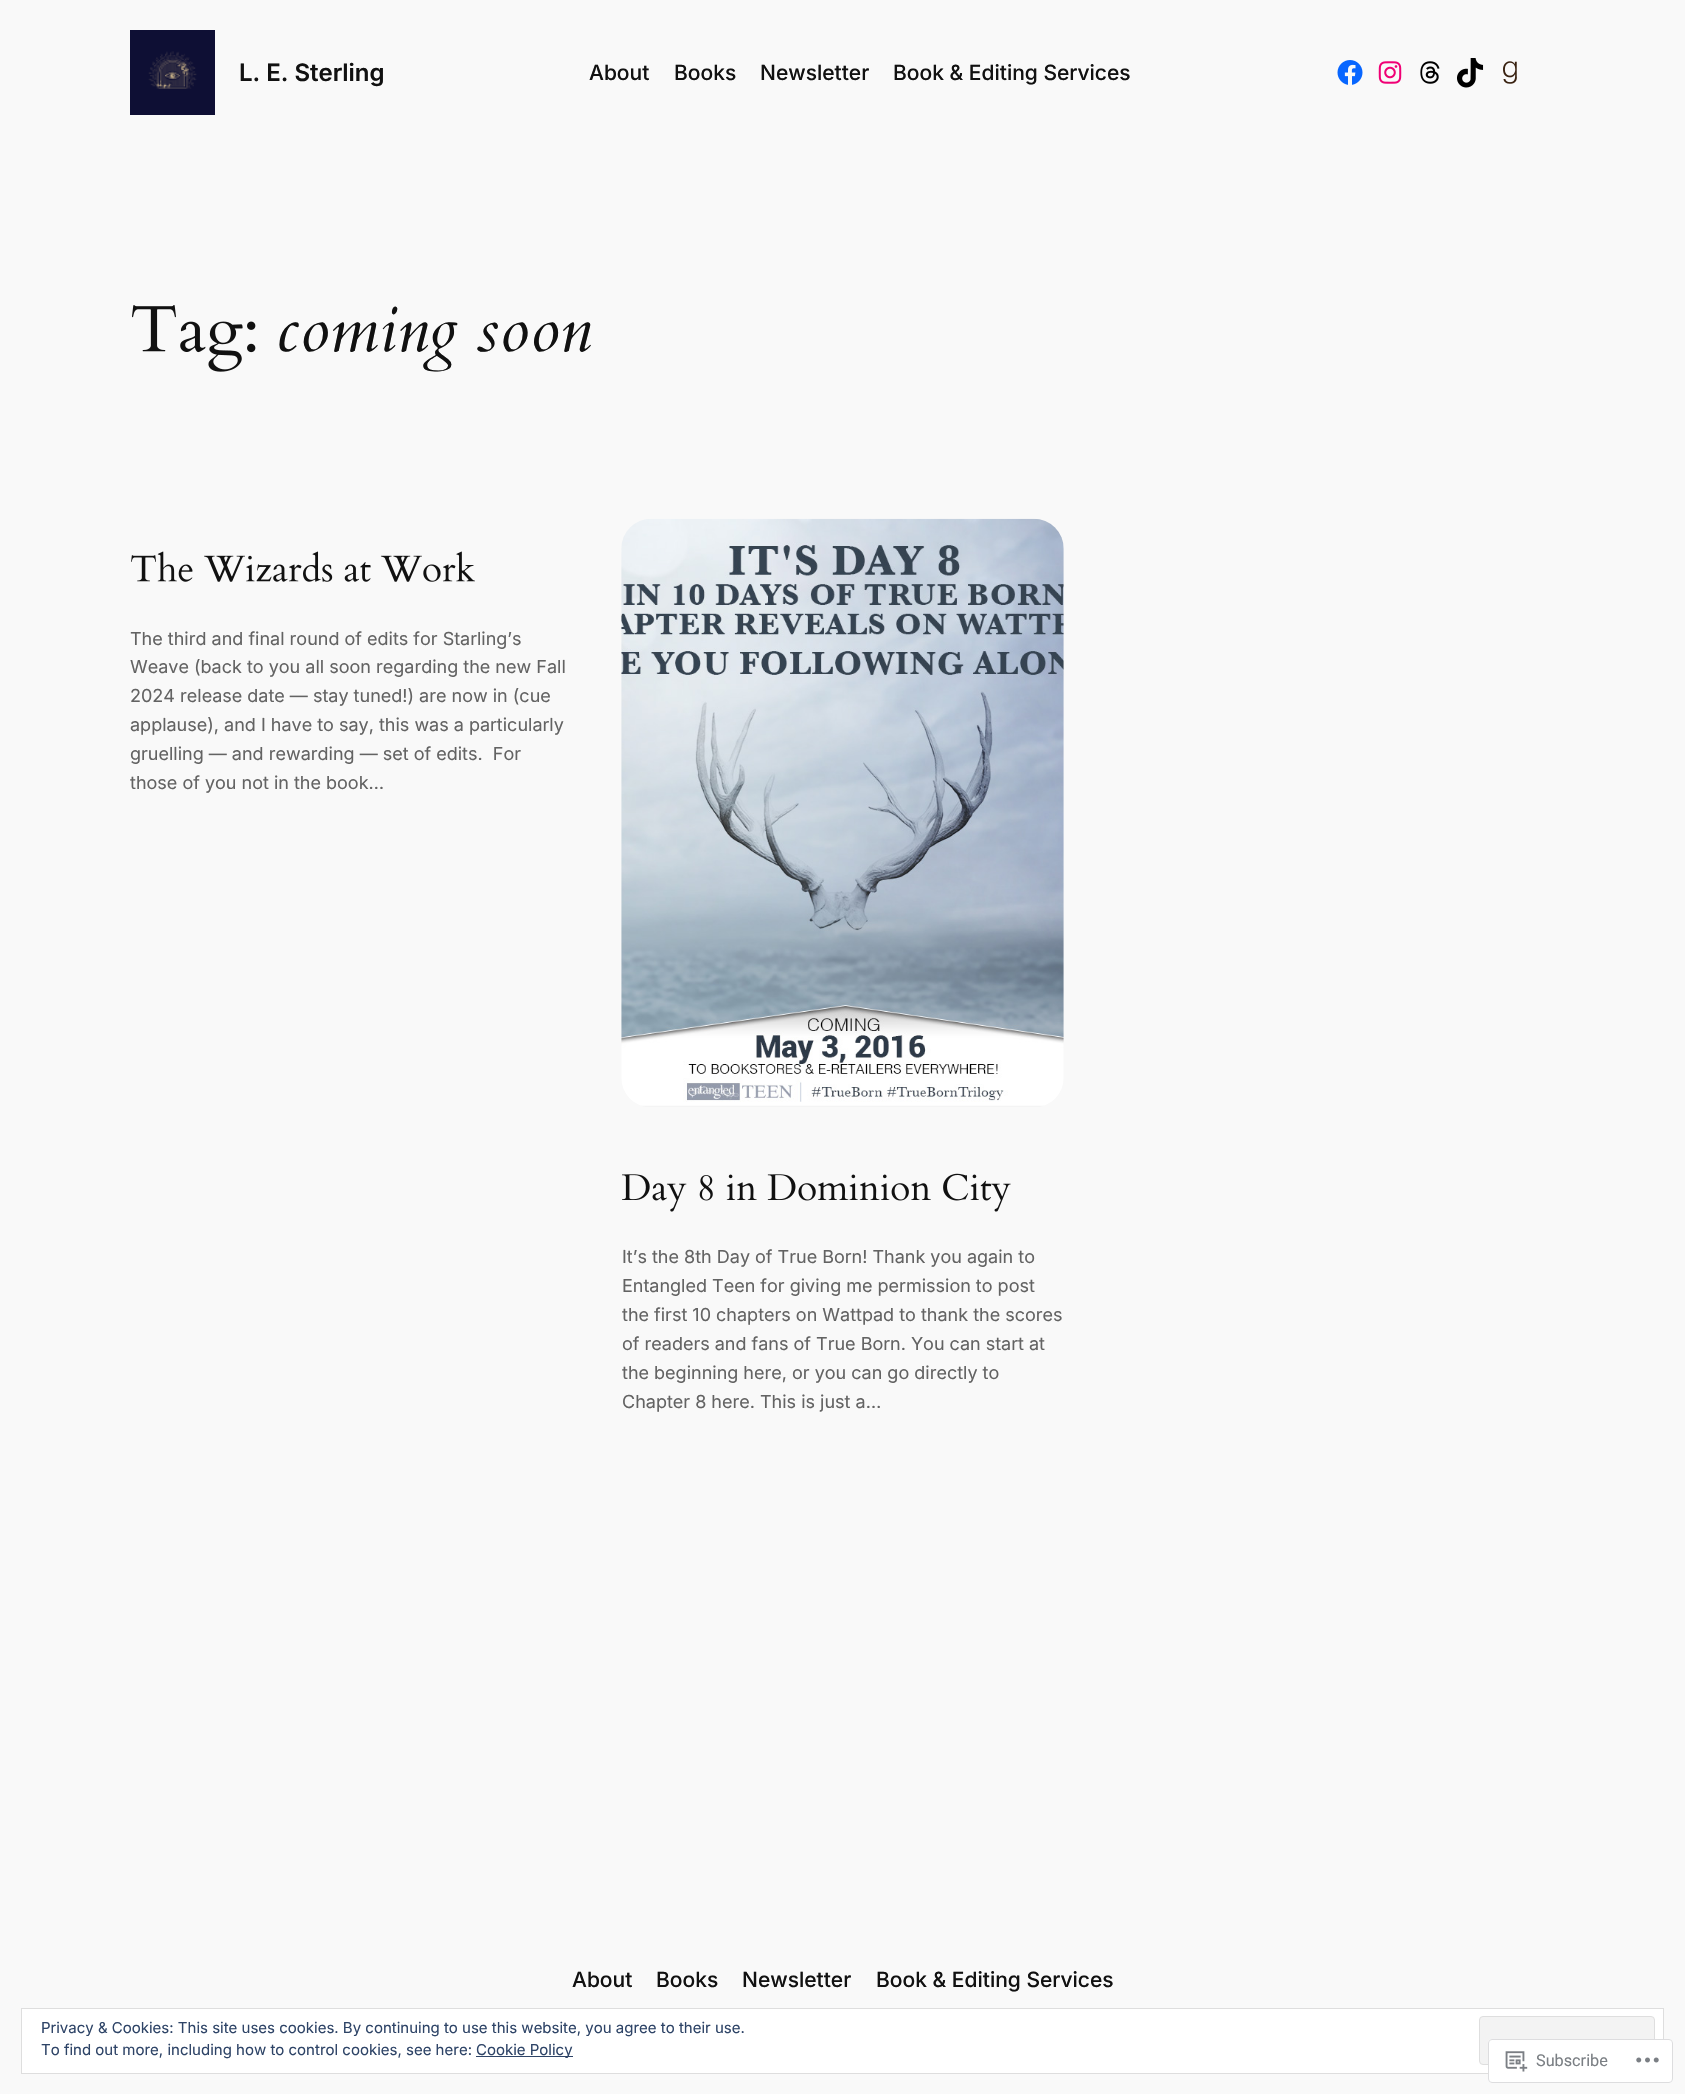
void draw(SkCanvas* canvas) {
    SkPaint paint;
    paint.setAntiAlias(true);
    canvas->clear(0xFFF9F9F9);
    canvas->drawImageRect(SkImages::DeferredFromEncodedData(SkData::MakeFromFileName("img1.png")), SkRect::MakeXYWH(130, 30, 85, 85), SkSamplingOptions());
    SkFont font1(fontMgr->matchFamilyStyle("Inter", SkFontStyle(600, SkFontStyle::kNormal_Width, SkFontStyle::kUpright_Slant)), 24);
    font1.setSubpixel(true);
    paint.setColor(0xFF111111);
    canvas->drawString("L. E. Sterling", 239, 81, font1, paint);
    SkFont font2(fontMgr->matchFamilyStyle("Inter", SkFontStyle(500, SkFontStyle::kNormal_Width, SkFontStyle::kUpright_Slant)), 21);
    font2.setSubpixel(true);
    canvas->drawString("About", 589, 80, font2, paint);
    canvas->drawString("Books", 674, 80, font2, paint);
    canvas->drawString("Newsletter", 760, 80, font2, paint);
    canvas->drawString("Book & Editing Services", 893, 80, font2, paint);
    canvas->drawImageRect(SkImages::DeferredFromEncodedData(SkData::MakeFromFileName("img2.png")), SkRect::MakeXYWH(1337, 60, 26, 25), SkSamplingOptions());
    canvas->drawImageRect(SkImages::DeferredFromEncodedData(SkData::MakeFromFileName("img3.png")), SkRect::MakeXYWH(1378, 61, 24, 23), SkSamplingOptions());
    canvas->drawImageRect(SkImages::DeferredFromEncodedData(SkData::MakeFromFileName("img4.png")), SkRect::MakeXYWH(1420, 61, 20, 23), SkSamplingOptions());
    canvas->drawImageRect(SkImages::DeferredFromEncodedData(SkData::MakeFromFileName("img5.png")), SkRect::MakeXYWH(1457, 58, 27, 30), SkSamplingOptions());
    canvas->drawImageRect(SkImages::DeferredFromEncodedData(SkData::MakeFromFileName("img6.png")), SkRect::MakeXYWH(1503, 61, 14, 23), SkSamplingOptions());
    canvas->drawImageRect(SkImages::DeferredFromEncodedData(SkData::MakeFromFileName("img7.png")), SkRect::MakeXYWH(132, 305, 124, 67), SkSamplingOptions());
    SkFont font3(fontMgr->matchFamilyStyle("Cardo", SkFontStyle::Italic()), 65.5f);
    font3.setSubpixel(true);
    canvas->drawString("coming soon", 277, 351, font3, paint);
    canvas->drawImageRect(SkImages::DeferredFromEncodedData(SkData::MakeFromFileName("img8.png")), SkRect::MakeXYWH(131, 551, 344, 31), SkSamplingOptions());
    SkFont font4(fontMgr->matchFamilyStyle("Inter", SkFontStyle::Normal()), 18);
    font4.setSubpixel(true);
    paint.setColor(0xFF636363);
    canvas->drawString("The third and final round of edits for Starling’s", 130, 645, font4, paint);
    canvas->drawString("Weave (back to you all soon regarding the new Fall", 130, 673, font4, paint);
    canvas->drawString("2024 release date — stay tuned!) are now in (cue", 130, 702, font4, paint);
    canvas->drawString("applause), and I have to say, this was a particularly", 130, 731, font4, paint);
    canvas->drawString("gruelling — and rewarding — set of edits.  For", 130, 760, font4, paint);
    canvas->drawString("those of you not in the book…", 130, 789, font4, paint);
    canvas->drawImageRect(SkImages::DeferredFromEncodedData(SkData::MakeFromFileName("img9.png")), SkRect::MakeXYWH(621, 518, 443, 589), SkSamplingOptions());
    canvas->drawImageRect(SkImages::DeferredFromEncodedData(SkData::MakeFromFileName("img10.png")), SkRect::MakeXYWH(622, 1173, 389, 39), SkSamplingOptions());
    canvas->drawString("It’s the 8th Day of True Born! Thank you again to", 622, 1263, font4, paint);
    canvas->drawString("Entangled Teen for giving me permission to post", 622, 1292, font4, paint);
    canvas->drawString("the first 10 chapters on Wattpad to thank the scores", 622, 1321, font4, paint);
    canvas->drawString("of readers and fans of True Born. You can start at", 622, 1350, font4, paint);
    canvas->drawString("the beginning here, or you can go directly to", 622, 1379, font4, paint);
    canvas->drawString("Chapter 8 here. This is just a…", 622, 1408, font4, paint);
    paint.setColor(0xFF111111);
    canvas->drawString("About", 572, 1987, font2, paint);
    canvas->drawString("Books", 656, 1987, font2, paint);
    canvas->drawString("Newsletter", 742, 1987, font2, paint);
    canvas->drawString("Book & Editing Services", 876, 1987, font2, paint);
    paint.setColor(0xFFFFFFFF);
    canvas->drawRect(SkRect::MakeXYWH(21.5f, 2008.5f, 1642, 65), paint);
    paint.setStyle(SkPaint::kStroke_Style);
    paint.setStrokeWidth(1);
    paint.setColor(0xFFDEDEDE);
    canvas->drawRect(SkRect::MakeXYWH(21.5f, 2008.5f, 1642, 65), paint);
    SkFont font5(fontMgr->matchFamilyStyle("Inter", SkFontStyle::Normal()), 15);
    font5.setSubpixel(true);
    paint.setStyle(SkPaint::kFill_Style);
    paint.setColor(0xFF2E4467);
    canvas->drawString("Privacy & Cookies: This site uses cookies. By continuing to use this website, you agree to their use.", 41, 2033, font5, paint);
    paint.setColor(0xFFF3F3F3);
    canvas->drawRoundRect(SkRect::MakeXYWH(1479.5f, 2016.5f, 175, 48), 3.5f, 3.5f, paint);
    paint.setStyle(SkPaint::kStroke_Style);
    paint.setColor(0xFFDEDEDE);
    canvas->drawRoundRect(SkRect::MakeXYWH(1479.5f, 2016.5f, 175, 48), 3.5f, 3.5f, paint);
    paint.setStyle(SkPaint::kFill_Style);
    paint.setColor(0xFF2E4467);
    canvas->drawString("To find out more, including how to control cookies, see here:", 41, 2055, font5, paint);
    canvas->drawRect(SkRect::MakeXYWH(476, 2056, 97, 1), paint);
    canvas->drawString("Cookie Policy", 476, 2055, font5, paint);
    paint.setColor(0xFAFFFFFF);
    canvas->drawRoundRect(SkRect::MakeXYWH(1488, 2039, 185, 44), 4, 4, paint);
    paint.setStyle(SkPaint::kStroke_Style);
    paint.setColor(0xFADCDCDE);
    canvas->drawRoundRect(SkRect::MakeXYWH(1488.5f, 2039.5f, 184, 43), 3.5f, 3.5f, paint);
    canvas->drawImageRect(SkImages::DeferredFromEncodedData(SkData::MakeFromFileName("img11.png")), SkRect::MakeXYWH(1505, 2051, 23, 21), SkSamplingOptions());
    SkFont font6(fontMgr->matchFamilyStyle("Roboto", SkFontStyle::Normal()), 16.25f);
    font6.setSubpixel(true);
    paint.setStyle(SkPaint::kFill_Style);
    paint.setColor(0xFF7B7F84);
    canvas->drawString("Subscribe", 1536, 2066, font6, paint);
    canvas->drawImageRect(SkImages::DeferredFromEncodedData(SkData::MakeFromFileName("img12.png")), SkRect::MakeXYWH(1636, 2057, 23, 6), SkSamplingOptions());
}
